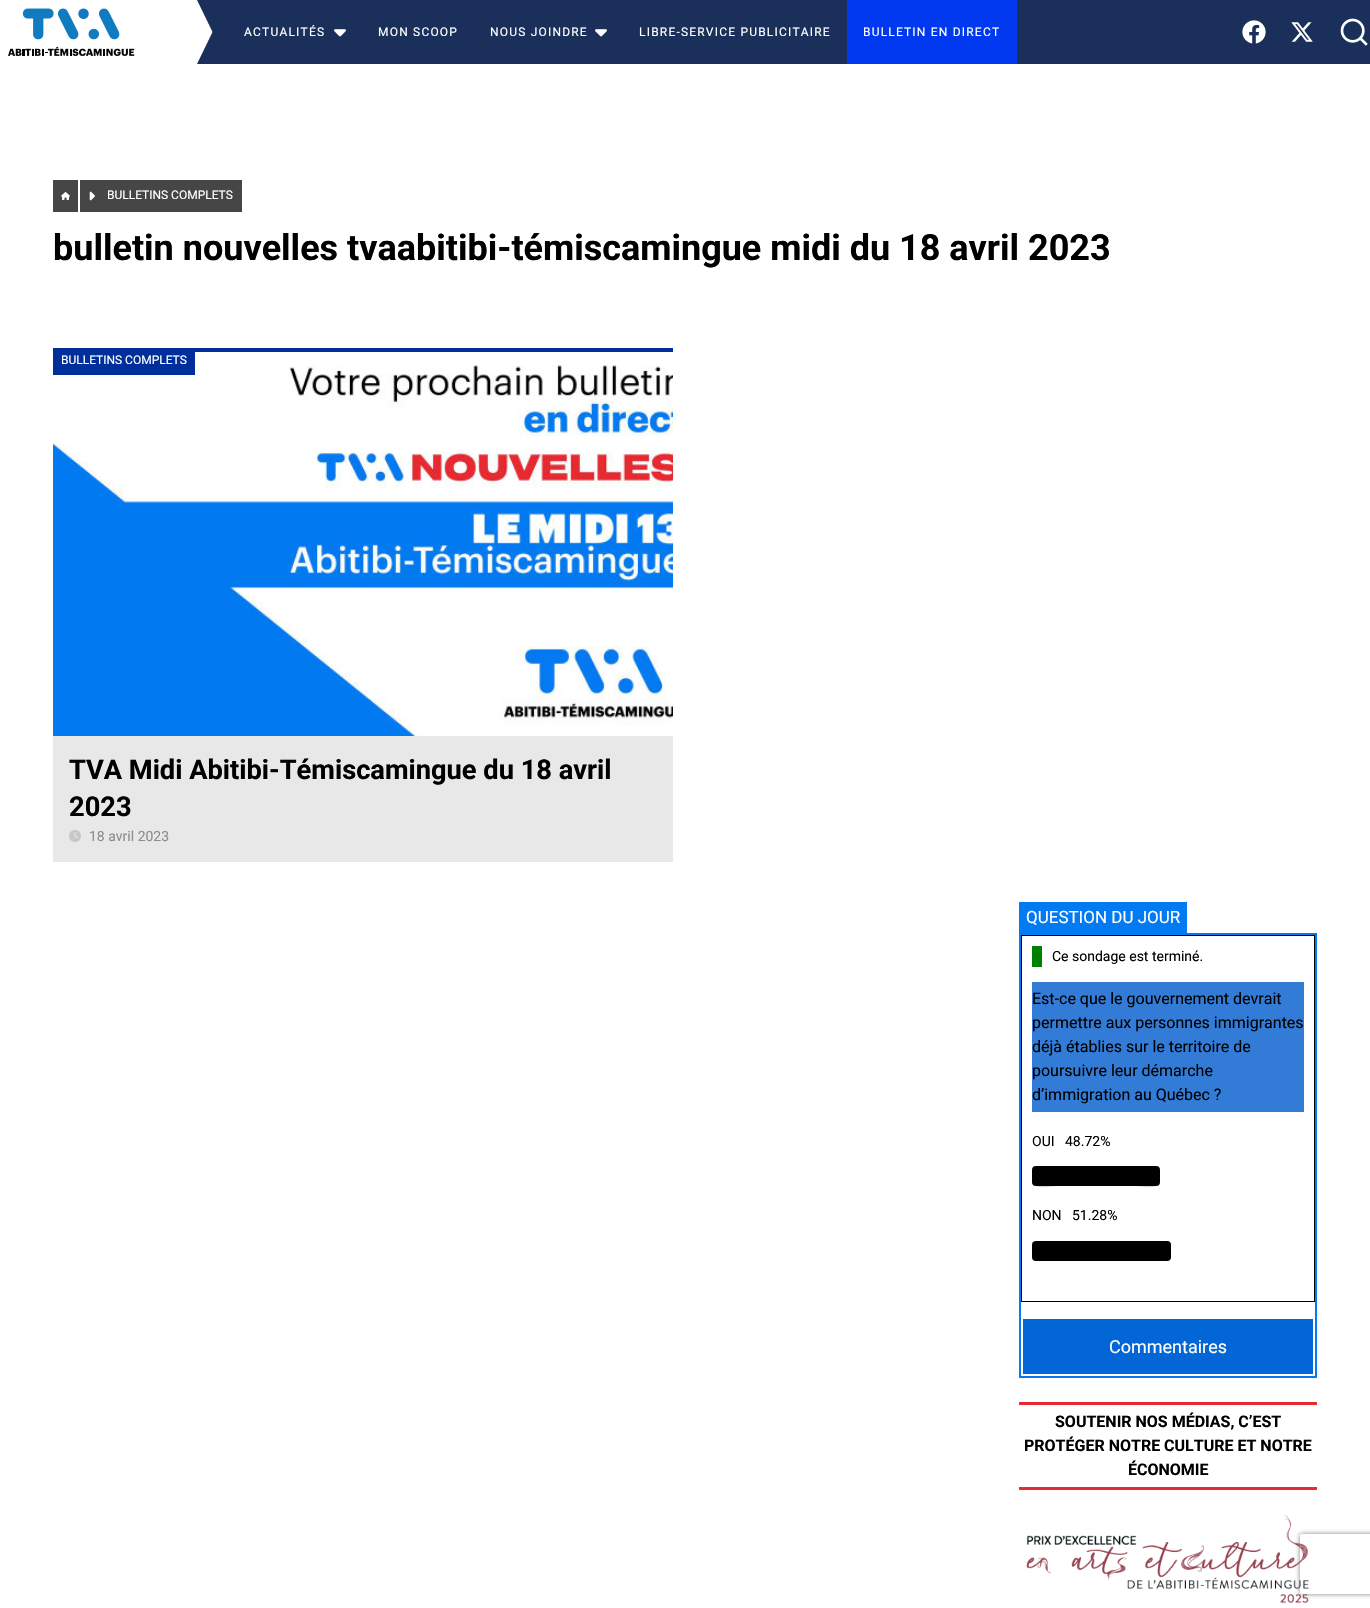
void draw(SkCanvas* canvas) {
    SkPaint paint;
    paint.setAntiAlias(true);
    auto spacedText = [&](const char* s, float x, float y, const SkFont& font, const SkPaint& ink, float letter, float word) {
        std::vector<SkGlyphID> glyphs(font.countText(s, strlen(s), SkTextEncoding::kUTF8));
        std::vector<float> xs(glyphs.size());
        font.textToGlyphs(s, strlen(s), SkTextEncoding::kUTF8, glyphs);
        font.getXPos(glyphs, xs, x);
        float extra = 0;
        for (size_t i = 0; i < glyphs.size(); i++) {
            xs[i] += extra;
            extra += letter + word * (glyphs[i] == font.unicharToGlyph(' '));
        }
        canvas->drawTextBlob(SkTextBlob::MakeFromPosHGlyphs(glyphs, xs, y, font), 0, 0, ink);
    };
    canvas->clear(0xFFFFFFFF);
    paint.setColor(0xFF1A305B);
    canvas->drawPath(SkPathBuilder(SkPathFillType::kEvenOdd).moveTo(197, 0).lineTo(228, 64).lineTo(228, 0).close().detach(), paint);
    canvas->drawPath(SkPathBuilder(SkPathFillType::kEvenOdd).moveTo(197, 64).lineTo(228, 0).lineTo(228, 64).close().detach(), paint);
    canvas->drawImageRect(SkImages::DeferredFromEncodedData(SkData::MakeFromFileName("img1.png")), SkRect::MakeXYWH(8, 8, 127, 48), SkSamplingOptions());
    canvas->drawRect(SkRect::MakeXYWH(228, 0, 1142, 64), paint);
    SkFont font1(fontMgr->matchFamilyStyle("Roboto", SkFontStyle::Normal()), 12);
    font1.setSubpixel(true);
    paint.setColor(0xFFFFFFFF);
    spacedText("ACTUALITÉS", 244, 36, font1, paint, 1.2f, 0);
    canvas->drawImageRect(SkImages::DeferredFromEncodedData(SkData::MakeFromFileName("img2.png")), SkRect::MakeXYWH(334, 29, 12, 8), SkSamplingOptions());
    spacedText("MON SCOOP", 378, 36, font1, paint, 1.2f, 0);
    spacedText("NOUS JOINDRE", 490, 36, font1, paint, 1.2f, 0);
    canvas->drawImageRect(SkImages::DeferredFromEncodedData(SkData::MakeFromFileName("img2.png")), SkRect::MakeXYWH(595, 29, 12, 8), SkSamplingOptions());
    spacedText("LIBRE-SERVICE PUBLICITAIRE", 639, 36, font1, paint, 1.2f, 0);
    paint.setColor(0xFF0039F0);
    canvas->drawRect(SkRect::MakeXYWH(847, 0, 170, 64), paint);
    paint.setColor(0xFFFFFFFF);
    spacedText("BULLETIN EN DIRECT", 863, 36, font1, paint, 1.2f, 0);
    canvas->drawImageRect(SkImages::DeferredFromEncodedData(SkData::MakeFromFileName("img3.png")), SkRect::MakeXYWH(1242, 20, 24, 24), SkSamplingOptions());
    canvas->drawImageRect(SkImages::DeferredFromEncodedData(SkData::MakeFromFileName("img4.png")), SkRect::MakeXYWH(1291, 22, 22, 20), SkSamplingOptions());
    canvas->drawImageRect(SkImages::DeferredFromEncodedData(SkData::MakeFromFileName("img5.png")), SkRect::MakeXYWH(1340, 18, 28, 28), SkSamplingOptions());
    paint.setColor(0xFF464646);
    canvas->drawRect(SkRect::MakeXYWH(53, 180, 25, 32), paint);
    canvas->drawImageRect(SkImages::DeferredFromEncodedData(SkData::MakeFromFileName("img6.png")), SkRect::MakeXYWH(61, 192, 9, 8), SkSamplingOptions());
    canvas->drawRect(SkRect::MakeXYWH(80, 180, 162, 32), paint);
    canvas->drawImageRect(SkImages::DeferredFromEncodedData(SkData::MakeFromFileName("img7.png")), SkRect::MakeXYWH(89, 191, 6, 10), SkSamplingOptions());
    paint.setColor(0xFFFFFFFF);
    canvas->drawString("BULLETINS COMPLETS", 107, 199, font1, paint);
    SkFont font2(fontMgr->matchFamilyStyle("Roboto", SkFontStyle::Bold()), 36);
    font2.setSubpixel(true);
    paint.setColor(0xFF000000);
    canvas->drawString("bulletin nouvelles tvaabitibi-témiscamingue midi du 18 avril 2023", 53, 260, font2, paint);
    paint.setColor(0xFF002F9C);
    canvas->drawRect(SkRect::MakeXYWH(195, 348, 478, 4), paint);
    canvas->drawImageRect(SkImages::DeferredFromEncodedData(SkData::MakeFromFileName("img8.png")), SkRect::MakeXYWH(53, 365, 620, 371), SkSamplingOptions());
    canvas->drawRect(SkRect::MakeXYWH(53, 348, 142, 27), paint);
    paint.setColor(0xFFFFFFFF);
    canvas->drawString("BULLETINS COMPLETS", 61, 364, font1, paint);
    paint.setColor(0xFFE8E8E8);
    canvas->drawRect(SkRect::MakeXYWH(53, 736, 620, 126), paint);
    SkFont font3(fontMgr->matchFamilyStyle("Roboto", SkFontStyle::Bold()), 27.25f);
    font3.setSubpixel(true);
    paint.setColor(0xFF000000);
    canvas->drawString("TVA Midi Abitibi-Témiscamingue du 18 avril", 69, 779, font3, paint);
    canvas->drawString("2023", 69, 816, font3, paint);
    canvas->drawImageRect(SkImages::DeferredFromEncodedData(SkData::MakeFromFileName("img9.png")), SkRect::MakeXYWH(69, 830, 12, 12), SkSamplingOptions());
    SkFont font4(fontMgr->matchFamilyStyle("Roboto", SkFontStyle::Normal()), 14);
    font4.setSubpixel(true);
    paint.setColor(0xFF8C8C8C);
    canvas->drawString("18 avril 2023", 89, 841, font4, paint);
    paint.setColor(0xFF027AF1);
    canvas->drawRect(SkRect::MakeXYWH(1019, 902, 168, 31), paint);
    SkFont font5(fontMgr->matchFamilyStyle("Roboto", SkFontStyle::Normal()), 17);
    font5.setSubpixel(true);
    paint.setColor(0xFFFFFFFF);
    canvas->drawString("QUESTION DU JOUR", 1026, 923, font5, paint);
    paint.setStyle(SkPaint::kStroke_Style);
    paint.setStrokeWidth(2);
    paint.setColor(0xFF027AF1);
    canvas->drawRect(SkRect::MakeXYWH(1020, 934, 296, 443), paint);
    paint.setStrokeWidth(1);
    paint.setColor(0xFF000000);
    canvas->drawRect(SkRect::MakeXYWH(1021.5f, 935.5f, 293, 366), paint);
    paint.setStyle(SkPaint::kFill_Style);
    paint.setColor(0xFF008000);
    canvas->drawRect(SkRect::MakeXYWH(1032, 946, 10, 21), paint);
    paint.setColor(0xFF000000);
    canvas->drawString("Ce sondage est terminé.", 1052, 961, font4, paint);
    paint.setColor(0xFF327BD6);
    canvas->drawRect(SkRect::MakeXYWH(1032, 982, 272, 130), paint);
    SkFont font6(fontMgr->matchFamilyStyle("Roboto", SkFontStyle::Normal()), 16);
    font6.setSubpixel(true);
    paint.setColor(0xFF000000);
    canvas->drawString("Est-ce que le gouvernement devrait", 1032, 1004, font6, paint);
    canvas->drawString("permettre aux personnes immigrantes", 1032, 1028, font6, paint);
    canvas->drawString("déjà établies sur le territoire de", 1032, 1052, font6, paint);
    canvas->drawString("poursuivre leur démarche", 1032, 1076, font6, paint);
    canvas->drawString("d’immigration au Québec ?", 1032, 1100, font6, paint);
    canvas->drawString("OUI", 1032, 1146, font4, paint);
    canvas->drawString("48.72%", 1065, 1146, font4, paint);
    canvas->drawRoundRect(SkRect::MakeXYWH(1032, 1166, 128, 20), 4, 4, paint);
    paint.setColor(0x26000000);
    canvas->drawPath(SkPathBuilder().moveTo(1032, 1181).cubicTo(1032, 1191, 1054, 1186, 1056, 1186).lineTo(1136, 1186).cubicTo(1138, 1186, 1160, 1191, 1160, 1181).cubicTo(1160, 1183, 1158, 1185, 1156, 1185).lineTo(1036, 1185).cubicTo(1034, 1185, 1032, 1183, 1032, 1181).close().detach(), paint);
    paint.setColor(0xFF000000);
    canvas->drawString("NON", 1032, 1220, font4, paint);
    canvas->drawString("51.28%", 1072, 1220, font4, paint);
    canvas->drawRoundRect(SkRect::MakeXYWH(1032, 1241, 139, 20), 4, 4, paint);
    paint.setColor(0x26000000);
    canvas->drawPath(SkPathBuilder().moveTo(1032, 1256).lineTo(1032, 1257).cubicTo(1032, 1259, 1034, 1261, 1036, 1261).lineTo(1167, 1261).cubicTo(1169, 1261, 1171, 1259, 1171, 1257).lineTo(1171, 1256).cubicTo(1171, 1258, 1169, 1260, 1167, 1260).lineTo(1036, 1260).cubicTo(1034, 1260, 1032, 1258, 1032, 1256).close().detach(), paint);
    paint.setColor(0xFF0366D6);
    canvas->drawRect(SkRect::MakeXYWH(1023, 1319, 290, 55), paint);
    SkFont font7(fontMgr->matchFamilyStyle("Roboto", SkFontStyle::Normal()), 18);
    font7.setSubpixel(true);
    paint.setColor(0xFFFFFFFF);
    canvas->drawString("Commentaires", 1109, 1353, font7, paint);
    paint.setColor(0xFFE72B33);
    canvas->drawRect(SkRect::MakeXYWH(1019, 1402, 298, 3), paint);
    canvas->drawRect(SkRect::MakeXYWH(1019, 1487, 298, 3), paint);
    SkFont font8(fontMgr->matchFamilyStyle("Roboto", SkFontStyle::Bold()), 16);
    font8.setSubpixel(true);
    paint.setColor(0xFF000000);
    canvas->drawString("SOUTENIR NOS MÉDIAS, C’EST", 1055, 1427, font8, paint);
    canvas->drawString("PROTÉGER NOTRE CULTURE ET NOTRE", 1024, 1451, font8, paint);
    canvas->drawString("ÉCONOMIE", 1128, 1475, font8, paint);
    canvas->drawImageRect(SkImages::DeferredFromEncodedData(SkData::MakeFromFileName("img10.png")), SkRect::MakeXYWH(1026, 1515, 283, 89), SkSamplingOptions());
    canvas->save();
    canvas->clipPath(SkPathBuilder(SkPathFillType::kEvenOdd).moveTo(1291, 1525).lineTo(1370, 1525).lineTo(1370, 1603).lineTo(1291, 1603).close().moveTo(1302, 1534).lineTo(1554, 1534).cubicTo(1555, 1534, 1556, 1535, 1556, 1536).lineTo(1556, 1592).cubicTo(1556, 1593, 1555, 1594, 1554, 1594).lineTo(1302, 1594).cubicTo(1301, 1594, 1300, 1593, 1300, 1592).lineTo(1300, 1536).cubicTo(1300, 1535, 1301, 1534, 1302, 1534).close().detach(), true);
    paint.setColor(0xFF808080);
    paint.setMaskFilter(SkMaskFilter::MakeBlur(kNormal_SkBlurStyle, 2.5f));
    canvas->drawRoundRect(SkRect::MakeXYWH(1300, 1534, 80, 60), 2, 2, paint);
    paint.setMaskFilter(nullptr);
    canvas->restore();
}
